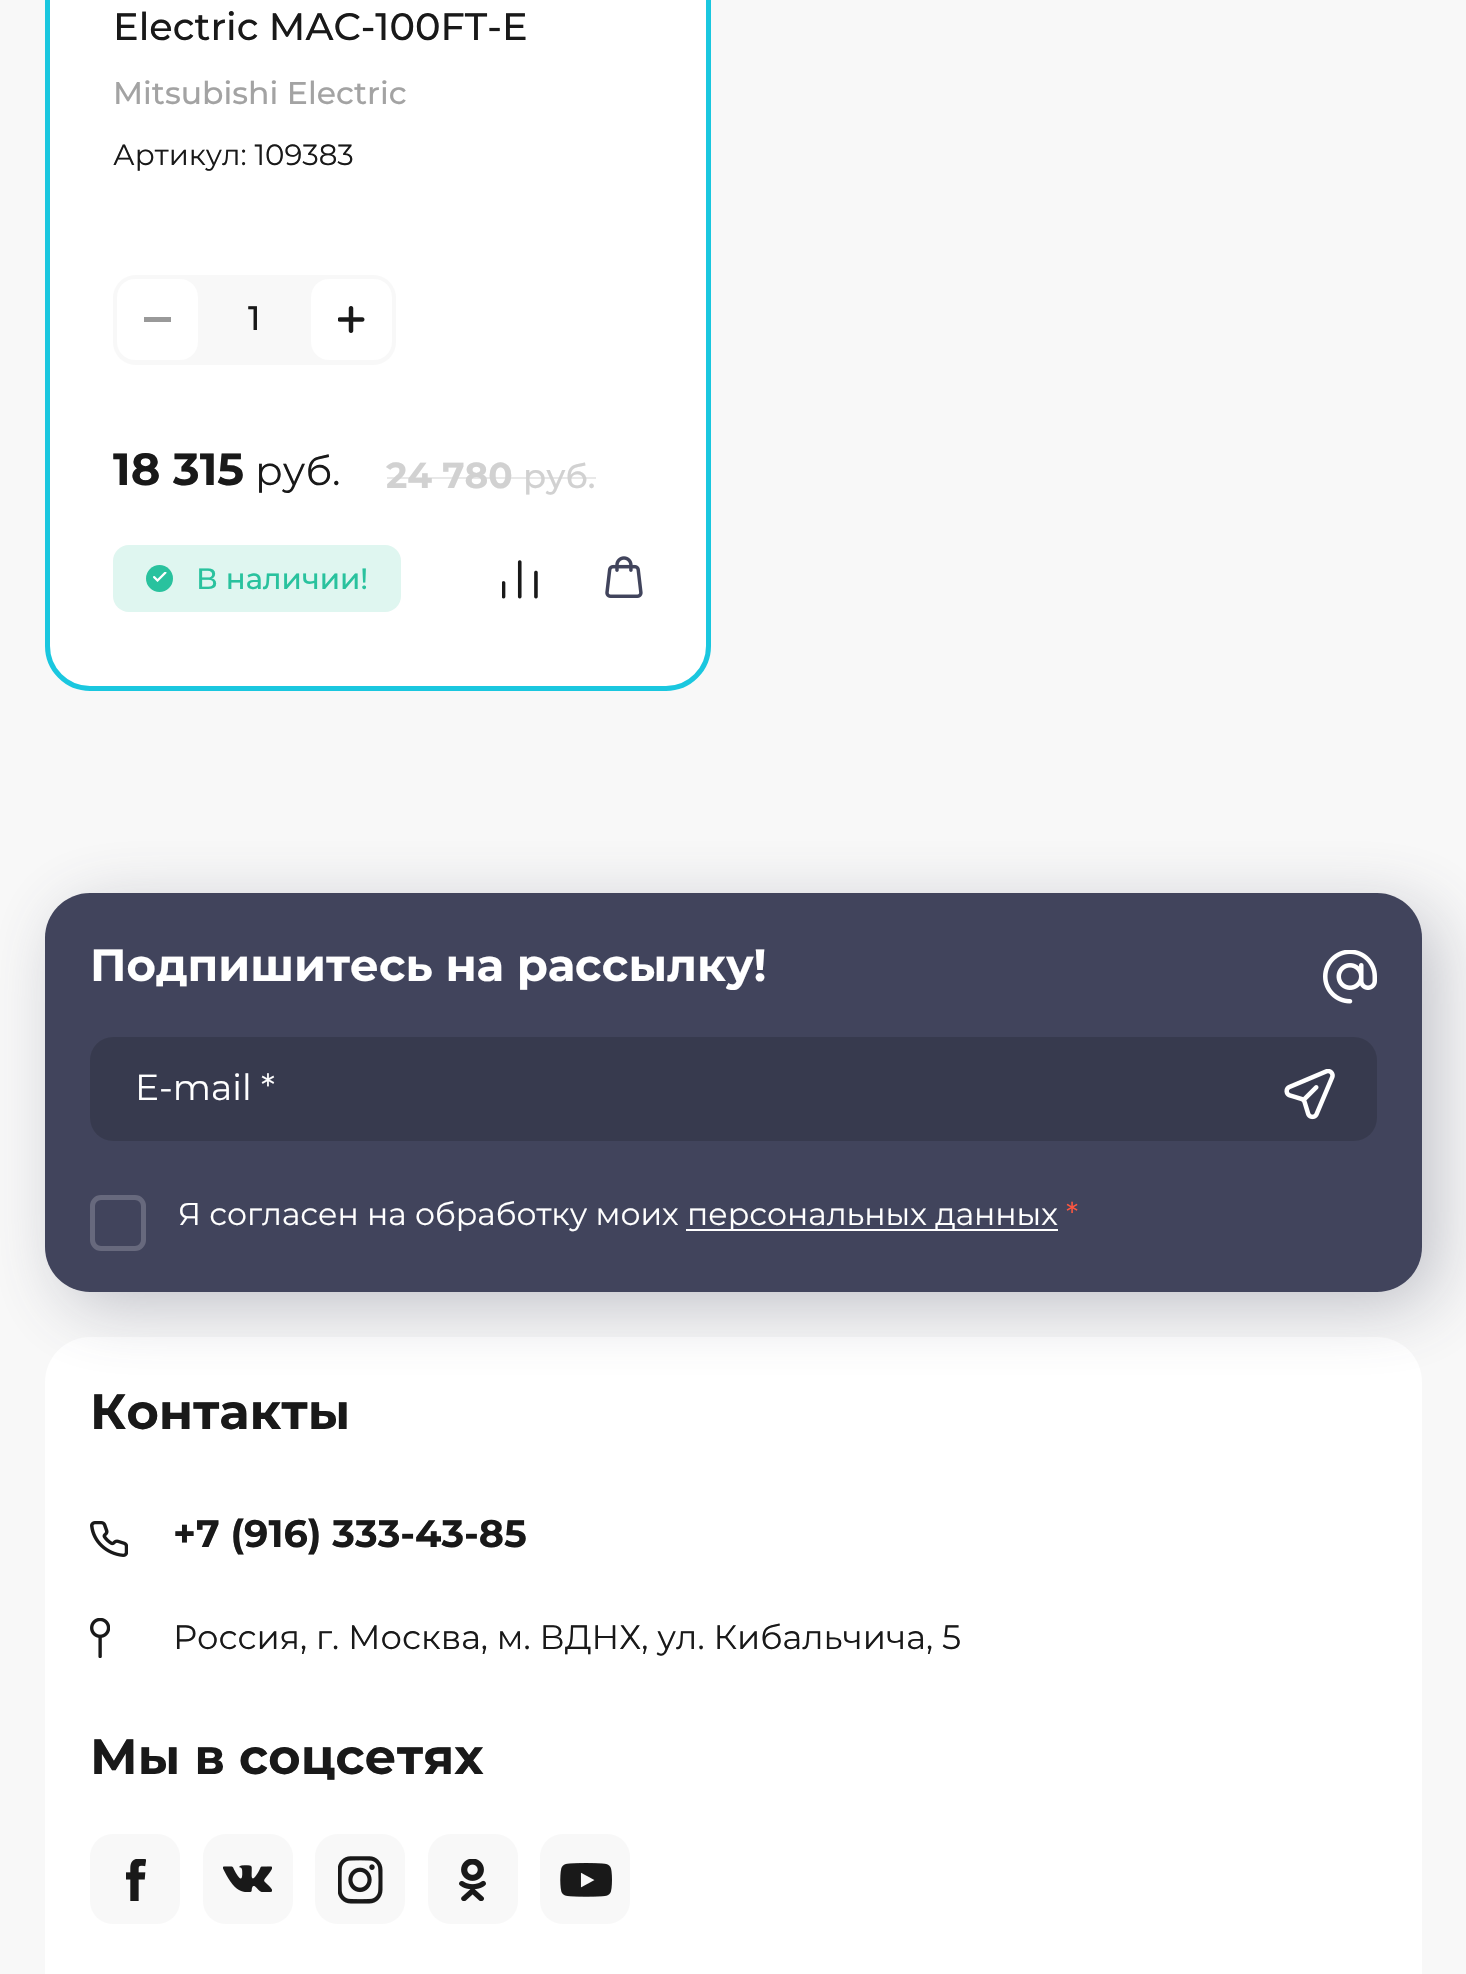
void draw(SkCanvas* canvas) {
    SkPaint paint;
    paint.setAntiAlias(true);
    canvas->clear(0xFFF8F8F8);
    paint.setColor(0xFFFFFFFF);
    canvas->drawPath(SkPathBuilder().moveTo(45, -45).lineTo(711, -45).lineTo(711, 646).cubicTo(711, 671, 691, 691, 666, 691).lineTo(90, 691).cubicTo(65, 691, 45, 671, 45, 646).close().detach(), paint);
    paint.setColor(0xFFF8F8F8);
    canvas->drawRoundRect(SkRect::MakeXYWH(113, 275, 283, 90), 23, 23, paint);
    paint.setColor(0xFFFFFFFF);
    canvas->drawRoundRect(SkRect::MakeXYWH(117, 279, 81, 81), 18, 18, paint);
    paint.setColor(0xFF999999);
    canvas->drawRect(SkRect::MakeXYWH(144, 317, 27, 5), paint);
    paint.setColor(0xFFFFFFFF);
    canvas->drawRoundRect(SkRect::MakeXYWH(311, 279, 81, 81), 18, 18, paint);
    canvas->drawImageRect(SkImages::DeferredFromEncodedData(SkData::MakeFromFileName("img1.png")), SkRect::MakeXYWH(338, 306, 27, 27), SkSamplingOptions());
    paint.setColor(0x1A191919);
    canvas->drawRect(SkRect::MakeXYWH(387, 477, 209, 2), paint);
    paint.setColor(0xFFDFF6F0);
    canvas->drawRoundRect(SkRect::MakeXYWH(113, 545, 288, 67), 16, 16, paint);
    paint.setColor(0xFF29C29E);
    canvas->drawCircle(159.5f, 578.5f, 13.5f, paint);
    canvas->drawImageRect(SkImages::DeferredFromEncodedData(SkData::MakeFromFileName("img2.png")), SkRect::MakeXYWH(153, 572, 14, 10), SkSamplingOptions());
    canvas->drawImageRect(SkImages::DeferredFromEncodedData(SkData::MakeFromFileName("img3.png")), SkRect::MakeXYWH(502, 560, 36, 39), SkSamplingOptions());
    canvas->drawImageRect(SkImages::DeferredFromEncodedData(SkData::MakeFromFileName("img4.png")), SkRect::MakeXYWH(605, 556, 38, 42), SkSamplingOptions());
    paint.setStyle(SkPaint::kStroke_Style);
    paint.setStrokeWidth(5);
    paint.setColor(0xFF1AC7DF);
    canvas->drawRoundRect(SkRect::MakeXYWH(47.5f, -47.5f, 661, 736), 42.5f, 42.5f, paint);
    SkFont font1(fontMgr->matchFamilyStyle("Montserrat", SkFontStyle(500, SkFontStyle::kNormal_Width, SkFontStyle::kUpright_Slant)), 38.25f);
    font1.setSubpixel(true);
    paint.setStyle(SkPaint::kFill_Style);
    paint.setColor(0xFF191919);
    canvas->drawString("Electric MAC-100FT-E", 113, 40, font1, paint);
    SkFont font2(fontMgr->matchFamilyStyle("Montserrat", SkFontStyle(500, SkFontStyle::kNormal_Width, SkFontStyle::kUpright_Slant)), 31.5f);
    font2.setSubpixel(true);
    paint.setColor(0xFFA3A3A3);
    canvas->drawString("Mitsubishi Electric", 113, 104, font2, paint);
    SkFont font3(fontMgr->matchFamilyStyle("Montserrat", SkFontStyle::Normal()), 29.25f);
    font3.setSubpixel(true);
    paint.setColor(0xFF191919);
    canvas->drawString("Артикул: 109383", 113, 165, font3, paint);
    SkFont font4(fontMgr->matchFamilyStyle("Montserrat", SkFontStyle(500, SkFontStyle::kNormal_Width, SkFontStyle::kUpright_Slant)), 33.75f);
    font4.setSubpixel(true);
    canvas->drawString("1", 248, 330, font4, paint);
    SkFont font5(fontMgr->matchFamilyStyle("Montserrat", SkFontStyle::Bold()), 45);
    font5.setSubpixel(true);
    canvas->drawString("18 315", 113, 485, font5, paint);
    SkFont font6(fontMgr->matchFamilyStyle("Montserrat", SkFontStyle::Normal()), 40.5f);
    font6.setSubpixel(true);
    canvas->drawString("руб.", 255, 485, font6, paint);
    SkFont font7(fontMgr->matchFamilyStyle("Montserrat", SkFontStyle::Bold()), 36);
    font7.setSubpixel(true);
    paint.setColor(0xFFD1D1D1);
    canvas->drawString("24 780", 386, 488, font7, paint);
    canvas->drawString("руб.", 523, 488, font4, paint);
    SkFont font8(fontMgr->matchFamilyStyle("Montserrat", SkFontStyle(500, SkFontStyle::kNormal_Width, SkFontStyle::kUpright_Slant)), 29.25f);
    font8.setSubpixel(true);
    paint.setColor(0xFF29C29E);
    canvas->drawString("В наличии!", 196, 589, font8, paint);
    paint.setColor(0xFFFFFFFF);
    canvas->drawRoundRect(SkRect::MakeXYWH(45, 1337, 1377, 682), 45, 45, paint);
    paint.setColor(0x4D41445C);
    paint.setMaskFilter(SkMaskFilter::MakeBlur(kNormal_SkBlurStyle, 34));
    canvas->drawRoundRect(SkRect::MakeXYWH(61, 909, 1377, 398), 45, 45, paint);
    paint.setMaskFilter(nullptr);
    paint.setColor(0xFF41445C);
    canvas->drawRoundRect(SkRect::MakeXYWH(45, 893, 1377, 399), 45, 45, paint);
    paint.setColor(0xFFFFFFFF);
    canvas->drawString("Подпишитесь на рассылку!", 90, 981, font5, paint);
    canvas->drawImageRect(SkImages::DeferredFromEncodedData(SkData::MakeFromFileName("img5.png")), SkRect::MakeXYWH(1323, 950, 54, 54), SkSamplingOptions());
    paint.setColor(0xFF373A4E);
    canvas->drawRoundRect(SkRect::MakeXYWH(90, 1037, 1287, 104), 23, 23, paint);
    SkFont font9(fontMgr->matchFamilyStyle("Montserrat", SkFontStyle::Normal()), 36);
    font9.setSubpixel(true);
    paint.setColor(0xFFFFFFFF);
    canvas->drawString("E-mail *", 135, 1100, font9, paint);
    canvas->drawImageRect(SkImages::DeferredFromEncodedData(SkData::MakeFromFileName("img6.png")), SkRect::MakeXYWH(1284, 1069, 51, 51), SkSamplingOptions());
    paint.setStyle(SkPaint::kStroke_Style);
    paint.setColor(0xFF67697D);
    canvas->drawRoundRect(SkRect::MakeXYWH(92.5f, 1197.5f, 51, 51), 8.5f, 8.5f, paint);
    SkFont font10(fontMgr->matchFamilyStyle("Montserrat", SkFontStyle::Normal()), 31.5f);
    font10.setSubpixel(true);
    paint.setStyle(SkPaint::kFill_Style);
    paint.setColor(0xFFFFFFFF);
    canvas->drawString("Я согласен на обработку моих", 178, 1225, font10, paint);
    canvas->drawRect(SkRect::MakeXYWH(686, 1229, 372, 2), paint);
    canvas->drawString("персональных данных", 687, 1225, font10, paint);
    paint.setColor(0xFFFF5640);
    canvas->drawString("*", 1066, 1225, font10, paint);
    SkFont font11(fontMgr->matchFamilyStyle("Montserrat", SkFontStyle::Bold()), 49.5f);
    font11.setSubpixel(true);
    paint.setColor(0xFF191919);
    canvas->drawString("Контакты", 90, 1429, font11, paint);
    canvas->drawImageRect(SkImages::DeferredFromEncodedData(SkData::MakeFromFileName("img7.png")), SkRect::MakeXYWH(90, 1521, 38, 36), SkSamplingOptions());
    SkFont font12(fontMgr->matchFamilyStyle("Montserrat", SkFontStyle::Bold()), 38.25f);
    font12.setSubpixel(true);
    canvas->drawString("+7 (916) 333-43-85", 173, 1547, font12, paint);
    canvas->drawImageRect(SkImages::DeferredFromEncodedData(SkData::MakeFromFileName("img8.png")), SkRect::MakeXYWH(90, 1618, 20, 40), SkSamplingOptions());
    SkFont font13(fontMgr->matchFamilyStyle("Montserrat", SkFontStyle::Normal()), 33.75f);
    font13.setSubpixel(true);
    canvas->drawString("Россия, г. Москва, м. ВДНХ, ул. Кибальчича, 5", 173, 1649, font13, paint);
    canvas->drawString("Мы в соцсетях", 90, 1774, font11, paint);
    paint.setColor(0xFFF8F8F8);
    canvas->drawRoundRect(SkRect::MakeXYWH(90, 1834, 90, 90), 23, 23, paint);
    canvas->drawImageRect(SkImages::DeferredFromEncodedData(SkData::MakeFromFileName("img9.png")), SkRect::MakeXYWH(126, 1859, 20, 42), SkSamplingOptions());
    canvas->drawRoundRect(SkRect::MakeXYWH(203, 1834, 90, 90), 23, 23, paint);
    canvas->drawImageRect(SkImages::DeferredFromEncodedData(SkData::MakeFromFileName("img10.png")), SkRect::MakeXYWH(223, 1865, 49, 27), SkSamplingOptions());
    canvas->drawRoundRect(SkRect::MakeXYWH(315, 1834, 90, 90), 23, 23, paint);
    canvas->drawImageRect(SkImages::DeferredFromEncodedData(SkData::MakeFromFileName("img11.png")), SkRect::MakeXYWH(338, 1856, 45, 48), SkSamplingOptions());
    canvas->drawRoundRect(SkRect::MakeXYWH(428, 1834, 90, 90), 23, 23, paint);
    canvas->drawImageRect(SkImages::DeferredFromEncodedData(SkData::MakeFromFileName("img12.png")), SkRect::MakeXYWH(459, 1859, 27, 42), SkSamplingOptions());
    canvas->drawRoundRect(SkRect::MakeXYWH(540, 1834, 90, 90), 23, 23, paint);
    canvas->drawImageRect(SkImages::DeferredFromEncodedData(SkData::MakeFromFileName("img13.png")), SkRect::MakeXYWH(560, 1863, 52, 34), SkSamplingOptions());
}
